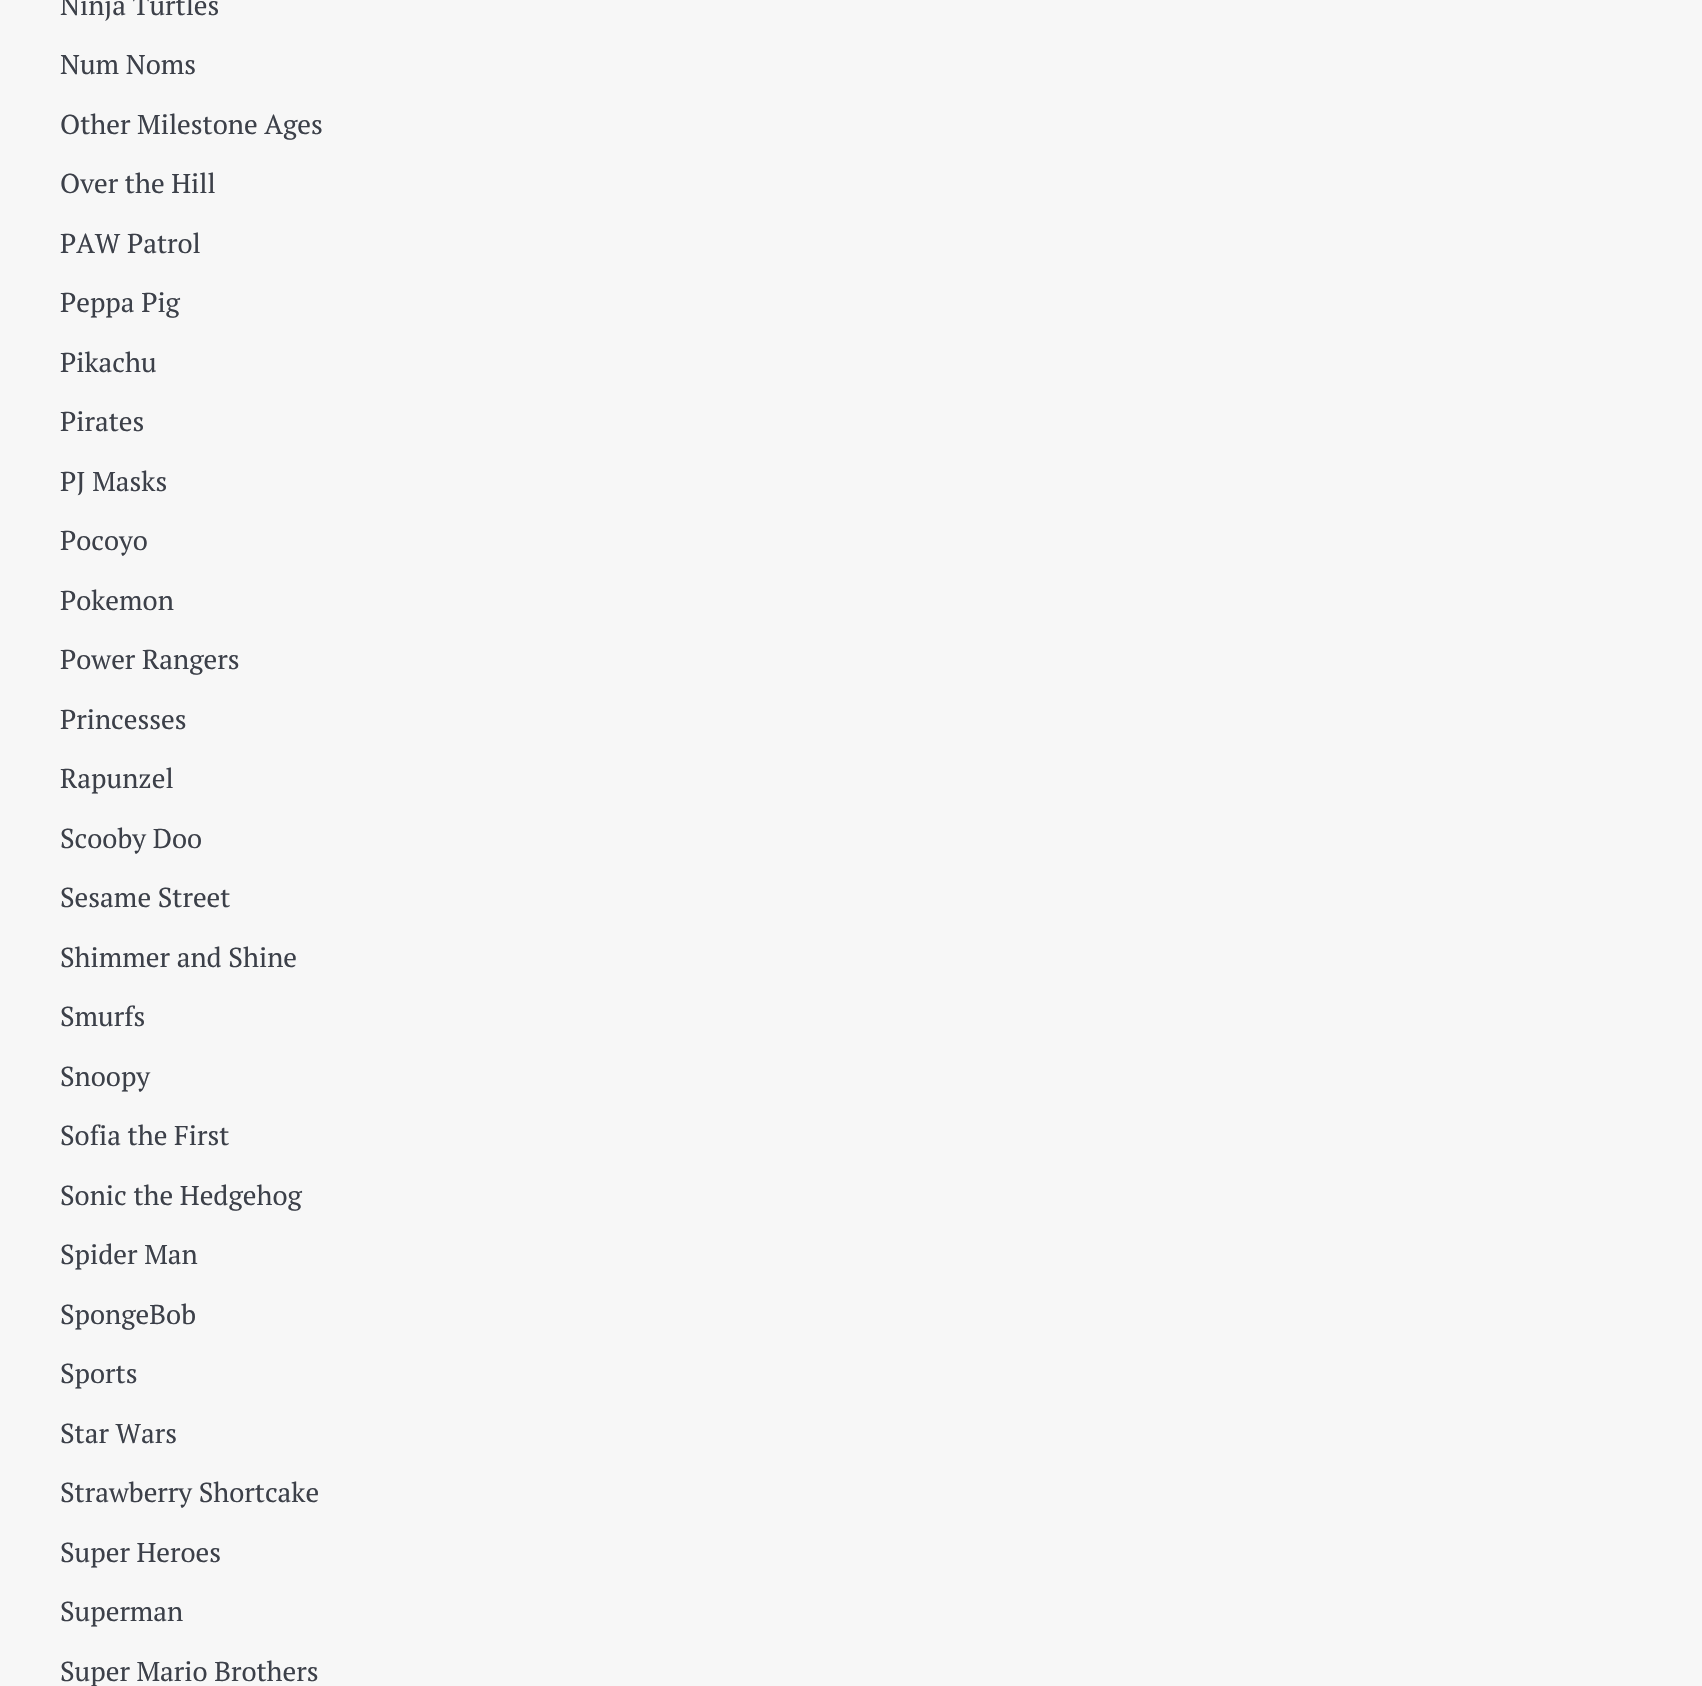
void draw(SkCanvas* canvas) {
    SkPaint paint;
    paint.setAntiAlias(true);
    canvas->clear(0xFFF7F7F7);
    SkFont font1(fontMgr->matchFamilyStyle("PT Serif", SkFontStyle::Normal()), 27.25f);
    font1.setSubpixel(true);
    paint.setColor(0xFF3C4049);
    canvas->drawString("Ninja Turtles", 60, 15, font1, paint);
    canvas->drawString("Num Noms", 60, 74, font1, paint);
    canvas->drawString("Other Milestone Ages", 60, 134, font1, paint);
    canvas->drawString("Over the Hill", 60, 193, font1, paint);
    canvas->drawString("PAW Patrol", 60, 253, font1, paint);
    canvas->drawString("Peppa Pig", 60, 312, font1, paint);
    canvas->drawString("Pikachu", 60, 372, font1, paint);
    canvas->drawString("Pirates", 60, 431, font1, paint);
    canvas->drawString("PJ Masks", 60, 491, font1, paint);
    canvas->drawString("Pocoyo", 60, 550, font1, paint);
    canvas->drawString("Pokemon", 60, 610, font1, paint);
    canvas->drawString("Power Rangers", 60, 669, font1, paint);
    canvas->drawString("Princesses", 60, 729, font1, paint);
    canvas->drawString("Rapunzel", 60, 788, font1, paint);
    canvas->drawString("Scooby Doo", 60, 848, font1, paint);
    canvas->drawString("Sesame Street", 60, 907, font1, paint);
    canvas->drawString("Shimmer and Shine", 60, 967, font1, paint);
    canvas->drawString("Smurfs", 60, 1026, font1, paint);
    canvas->drawString("Snoopy", 60, 1086, font1, paint);
    canvas->drawString("Sofia the First", 60, 1145, font1, paint);
    canvas->drawString("Sonic the Hedgehog", 60, 1205, font1, paint);
    canvas->drawString("Spider Man", 60, 1264, font1, paint);
    canvas->drawString("SpongeBob", 60, 1324, font1, paint);
    canvas->drawString("Sports", 60, 1383, font1, paint);
    canvas->drawString("Star Wars", 60, 1443, font1, paint);
    canvas->drawString("Strawberry Shortcake", 60, 1502, font1, paint);
    canvas->drawString("Super Heroes", 60, 1562, font1, paint);
    canvas->drawString("Superman", 60, 1621, font1, paint);
    canvas->drawString("Super Mario Brothers", 60, 1681, font1, paint);
}
